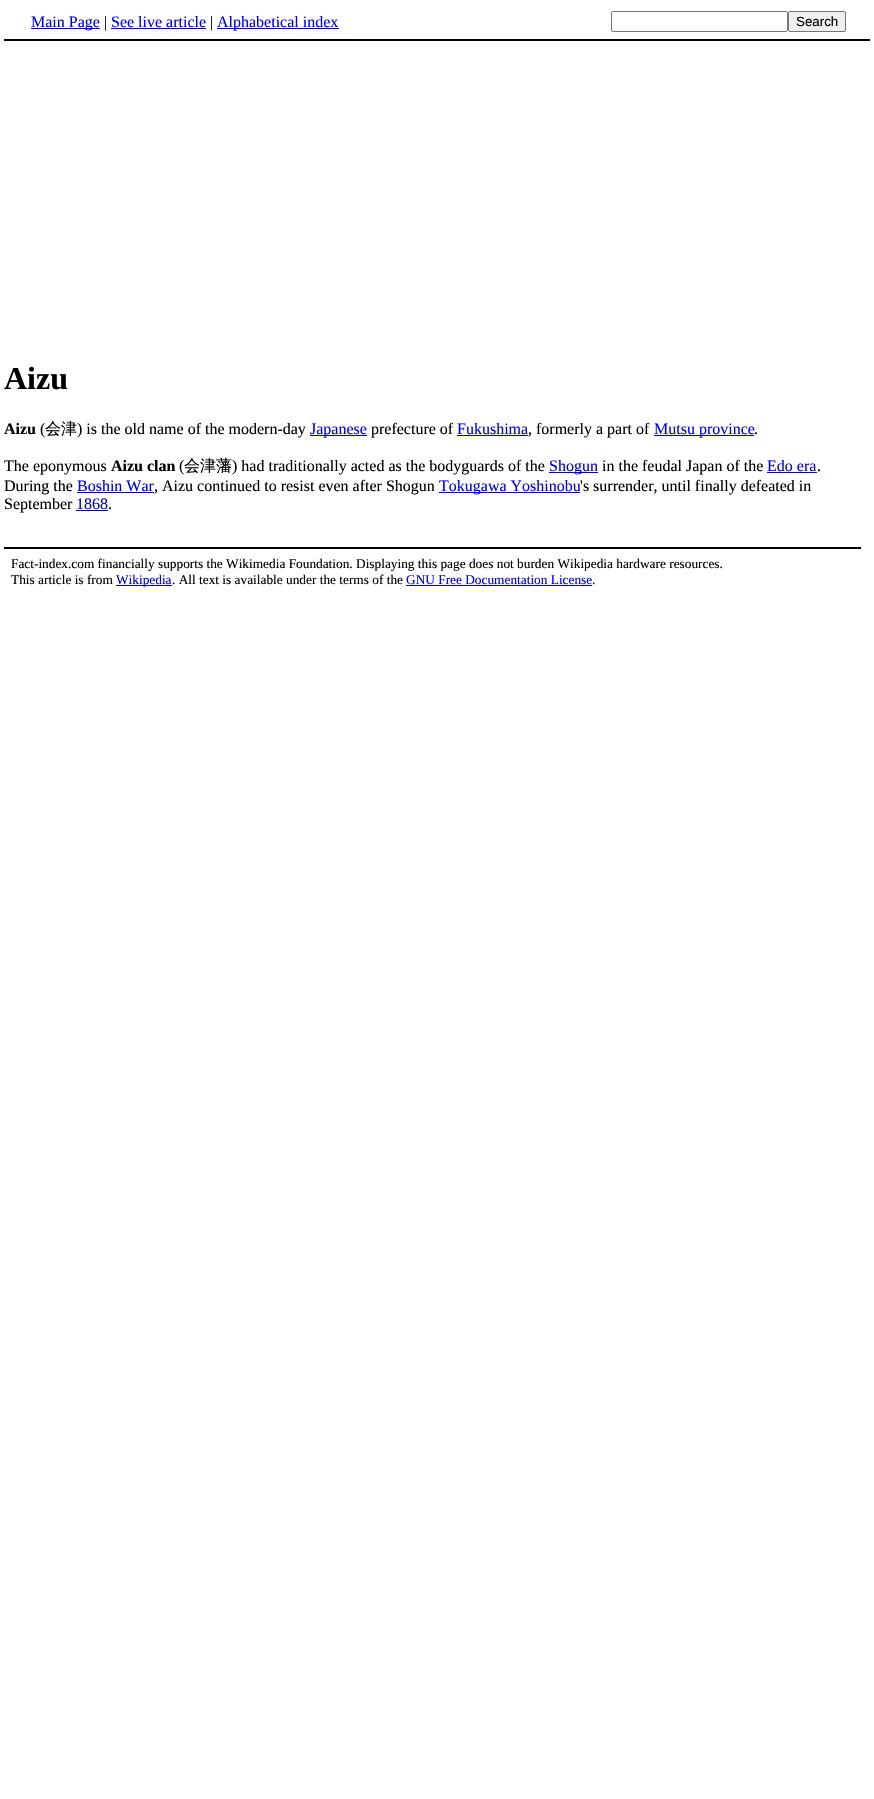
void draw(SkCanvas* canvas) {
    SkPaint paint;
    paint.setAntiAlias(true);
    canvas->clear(0xFFFFFFFF);
    paint.setColor(0xFF000000);
    canvas->drawRect(SkRect::MakeXYWH(4, 39, 866, 2), paint);
    paint.setColor(0xFF0000EE);
    canvas->drawRect(SkRect::MakeXYWH(31, 28, 69, 1), paint);
    SkFont font1(fontMgr->matchFamilyStyle("Liberation Serif", SkFontStyle::Normal()), 16);
    font1.setSubpixel(true);
    canvas->drawString("Main Page", 31, 27, font1, paint);
    paint.setColor(0xFF000000);
    canvas->drawString("|", 104, 27, font1, paint);
    paint.setColor(0xFF0000EE);
    canvas->drawString("See live article", 111, 27, font1, paint);
    canvas->drawRect(SkRect::MakeXYWH(111, 28, 95, 1), paint);
    paint.setColor(0xFF000000);
    canvas->drawString("|", 210, 27, font1, paint);
    paint.setColor(0xFF0000EE);
    canvas->drawRect(SkRect::MakeXYWH(217, 28, 122, 1), paint);
    canvas->drawString("Alphabetical index", 217, 27, font1, paint);
    paint.setStyle(SkPaint::kStroke_Style);
    paint.setStrokeWidth(1);
    paint.setColor(0xFF767676);
    canvas->drawRoundRect(SkRect::MakeXYWH(611.5f, 11.5f, 176, 20), 1.5f, 1.5f, paint);
    paint.setStyle(SkPaint::kFill_Style);
    paint.setColor(0xFFEFEFEF);
    canvas->drawRoundRect(SkRect::MakeXYWH(788.5f, 11.5f, 57, 20), 1.5f, 1.5f, paint);
    paint.setStyle(SkPaint::kStroke_Style);
    paint.setColor(0xFF767676);
    canvas->drawRoundRect(SkRect::MakeXYWH(788.5f, 11.5f, 57, 20), 1.5f, 1.5f, paint);
    SkFont font2(fontMgr->matchFamilyStyle("Liberation Sans", SkFontStyle::Normal()), 13.33f);
    font2.setSubpixel(true);
    paint.setStyle(SkPaint::kFill_Style);
    paint.setColor(0xFF000000);
    canvas->drawString("Search", 796, 26, font2, paint);
    SkFont font3(fontMgr->matchFamilyStyle("Liberation Serif", SkFontStyle::Bold()), 32);
    font3.setSubpixel(true);
    canvas->drawString("Aizu", 4, 389, font3, paint);
    SkFont font4(fontMgr->matchFamilyStyle("Liberation Serif", SkFontStyle::Bold()), 16);
    font4.setSubpixel(true);
    canvas->drawString("Aizu", 4, 434, font4, paint);
    canvas->drawString("(", 40, 434, font1, paint);
    SkFont font5(fontMgr->matchFamilyStyle("WenQuanYi Zen Hei", SkFontStyle(500, SkFontStyle::kNormal_Width, SkFontStyle::kUpright_Slant)), 16);
    font5.setSubpixel(true);
    canvas->drawString("会津", 45, 434, font5, paint);
    canvas->drawString(") is the old name of the modern-day", 77, 434, font1, paint);
    paint.setColor(0xFF0000EE);
    canvas->drawRect(SkRect::MakeXYWH(310, 435, 57, 1), paint);
    canvas->drawString("Japanese", 310, 434, font1, paint);
    paint.setColor(0xFF000000);
    canvas->drawString("prefecture of", 371, 434, font1, paint);
    paint.setColor(0xFF0000EE);
    canvas->drawString("Fukushima", 457, 434, font1, paint);
    canvas->drawRect(SkRect::MakeXYWH(457, 435, 71, 1), paint);
    paint.setColor(0xFF000000);
    canvas->drawString(", formerly a part of", 528, 434, font1, paint);
    paint.setColor(0xFF0000EE);
    canvas->drawRect(SkRect::MakeXYWH(654, 435, 100, 1), paint);
    canvas->drawString("Mutsu province", 654, 434, font1, paint);
    paint.setColor(0xFF000000);
    canvas->drawString(".", 754, 434, font1, paint);
    canvas->drawString("The eponymous", 4, 471, font1, paint);
    canvas->drawString("Aizu clan", 111, 471, font4, paint);
    canvas->drawString("(", 179, 471, font1, paint);
    canvas->drawString("会津藩", 184, 471, font5, paint);
    canvas->drawString(") had traditionally acted as the bodyguards of the", 232, 471, font1, paint);
    paint.setColor(0xFF0000EE);
    canvas->drawRect(SkRect::MakeXYWH(549, 472, 49, 1), paint);
    canvas->drawString("Shogun", 549, 471, font1, paint);
    paint.setColor(0xFF000000);
    canvas->drawString("in the feudal Japan of the", 602, 471, font1, paint);
    paint.setColor(0xFF0000EE);
    canvas->drawString("Edo era", 767, 471, font1, paint);
    canvas->drawRect(SkRect::MakeXYWH(767, 472, 50, 1), paint);
    paint.setColor(0xFF000000);
    canvas->drawString(".", 817, 471, font1, paint);
    canvas->drawString("During the", 4, 491, font1, paint);
    paint.setColor(0xFF0000EE);
    canvas->drawString("Boshin War", 77, 491, font1, paint);
    canvas->drawRect(SkRect::MakeXYWH(77, 492, 77, 1), paint);
    paint.setColor(0xFF000000);
    canvas->drawString(", Aizu continued to resist even after Shogun", 154, 491, font1, paint);
    paint.setColor(0xFF0000EE);
    canvas->drawRect(SkRect::MakeXYWH(439, 492, 141, 1), paint);
    canvas->drawString("Tokugawa Yoshinobu", 439, 491, font1, paint);
    paint.setColor(0xFF000000);
    canvas->drawString("'s surrender, until finally defeated in", 580, 491, font1, paint);
    canvas->drawString("September", 4, 509, font1, paint);
    paint.setColor(0xFF0000EE);
    canvas->drawString("1868", 76, 509, font1, paint);
    canvas->drawRect(SkRect::MakeXYWH(76, 510, 32, 1), paint);
    paint.setColor(0xFF000000);
    canvas->drawString(".", 108, 509, font1, paint);
    canvas->drawRect(SkRect::MakeXYWH(4, 547, 857, 2), paint);
    SkFont font6(fontMgr->matchFamilyStyle("Liberation Serif", SkFontStyle::Normal()), 13.33f);
    font6.setSubpixel(true);
    canvas->drawString("Fact-index.com financially supports the Wikimedia Foundation. Displaying this page does not burden Wikipedia hardware resources.", 11, 568, font6, paint);
    canvas->drawString("This article is from", 11, 584, font6, paint);
    paint.setColor(0xFF0000EE);
    canvas->drawRect(SkRect::MakeXYWH(116, 585, 56, 1), paint);
    canvas->drawString("Wikipedia", 116, 584, font6, paint);
    paint.setColor(0xFF000000);
    canvas->drawString(". All text is available under the terms of the", 172, 584, font6, paint);
    paint.setColor(0xFF0000EE);
    canvas->drawString("GNU Free Documentation License", 406, 584, font6, paint);
    paint.setColor(0xFF000000);
    canvas->drawString(".", 592, 584, font6, paint);
    paint.setColor(0xFF0000EE);
    canvas->drawRect(SkRect::MakeXYWH(406, 585, 186, 1), paint);
}
